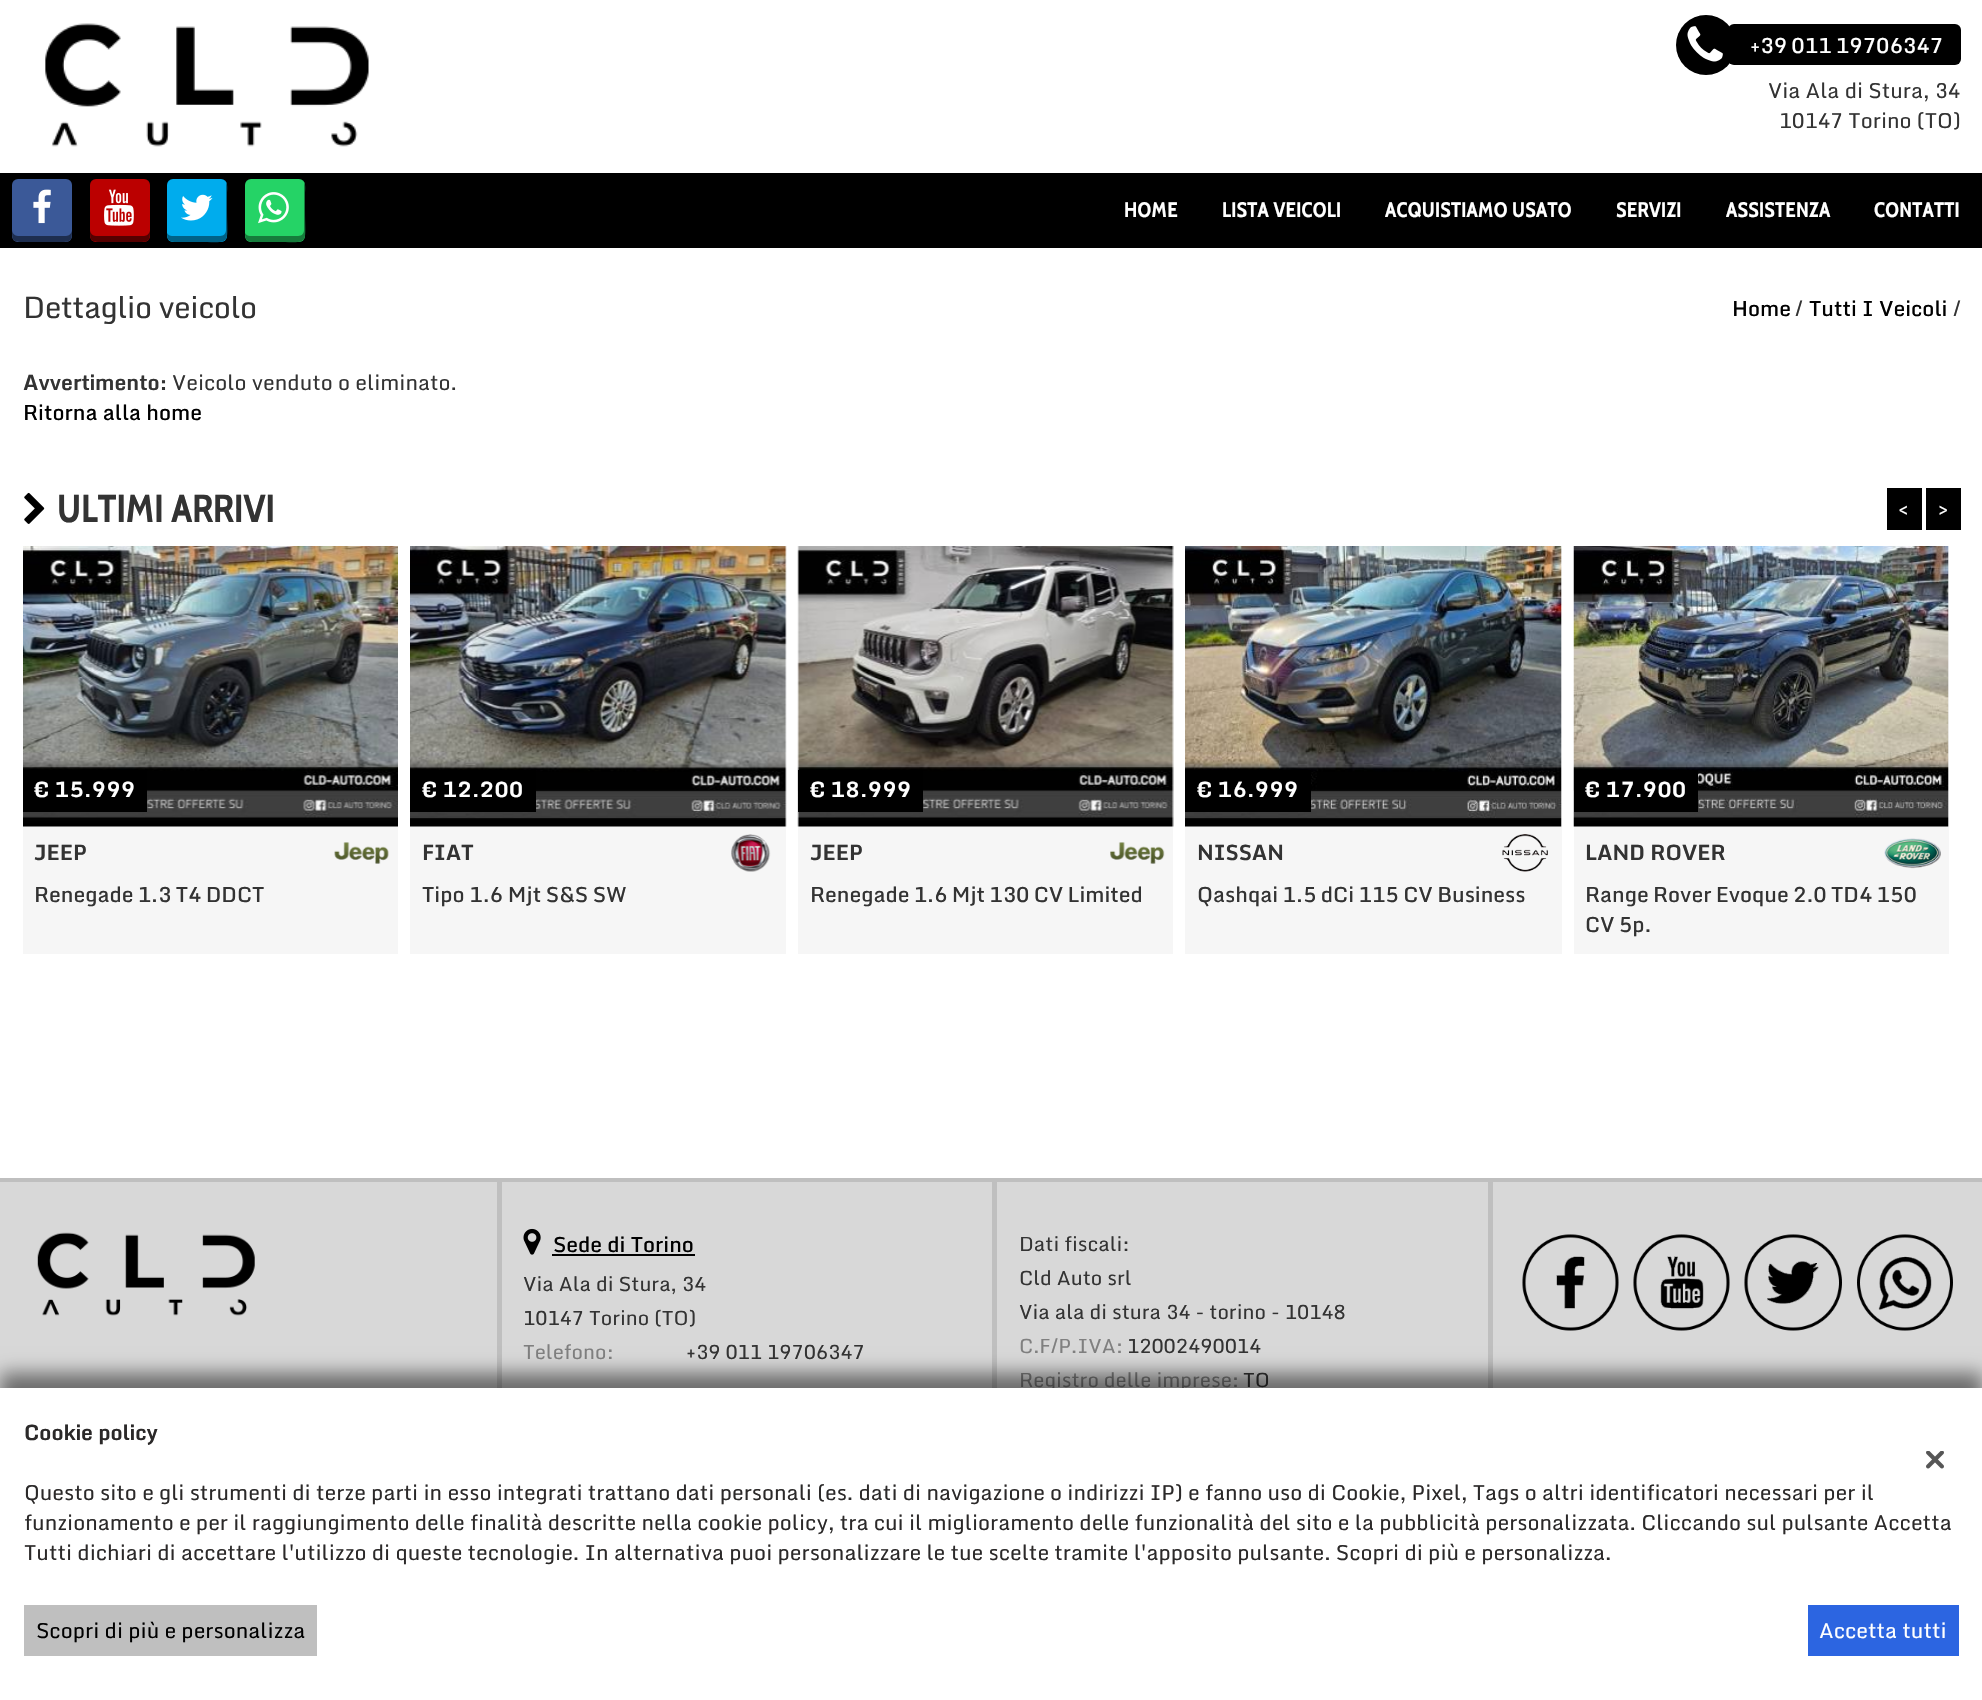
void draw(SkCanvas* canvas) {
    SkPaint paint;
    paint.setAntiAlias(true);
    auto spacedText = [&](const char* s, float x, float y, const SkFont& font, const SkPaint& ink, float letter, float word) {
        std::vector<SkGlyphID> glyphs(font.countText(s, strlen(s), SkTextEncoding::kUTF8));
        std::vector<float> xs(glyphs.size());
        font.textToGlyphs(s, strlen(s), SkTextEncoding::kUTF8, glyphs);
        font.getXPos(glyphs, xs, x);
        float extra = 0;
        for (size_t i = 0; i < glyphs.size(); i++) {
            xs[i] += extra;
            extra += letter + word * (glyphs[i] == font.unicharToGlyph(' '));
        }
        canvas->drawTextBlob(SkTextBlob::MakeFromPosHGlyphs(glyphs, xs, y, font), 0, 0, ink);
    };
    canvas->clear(0xFFFFFFFF);
    canvas->drawImageRect(SkImages::DeferredFromEncodedData(SkData::MakeFromFileName("img1.png")), SkRect::MakeXYWH(45, 23, 324, 124), SkSamplingOptions());
    paint.setColor(0xFF000000);
    canvas->drawCircle(1706, 45, 30, paint);
    canvas->drawImageRect(SkImages::DeferredFromEncodedData(SkData::MakeFromFileName("img2.png")), SkRect::MakeXYWH(1687, 26, 36, 36), SkSamplingOptions());
    canvas->drawRoundRect(SkRect::MakeXYWH(1728, 24, 233, 41), 6, 6, paint);
    SkFont font1(fontMgr->matchFamilyStyle("Monda", SkFontStyle(500, SkFontStyle::kNormal_Width, SkFontStyle::kUpright_Slant)), 21);
    font1.setSubpixel(true);
    paint.setColor(0xFFFFFFFF);
    spacedText("+39 011 19706347", 1750, 53, font1, paint, 0, -1);
    SkFont font2(fontMgr->matchFamilyStyle("Monda", SkFontStyle::Normal()), 21);
    font2.setSubpixel(true);
    paint.setColor(0xFF333333);
    canvas->drawString("Via Ala di Stura, 34", 1768, 98, font2, paint);
    canvas->drawString("10147 Torino (TO)", 1779, 128, font2, paint);
    paint.setColor(0xFF000000);
    canvas->drawRect(SkRect::MakeXYWH(0, 173, 1982, 75), paint);
    paint.setColor(0xFF3B5998);
    canvas->drawRoundRect(SkRect::MakeXYWH(12, 179, 60, 63), 6, 6, paint);
    paint.setColor(0xFF1E2E4F);
    canvas->drawPath(SkPathBuilder().moveTo(12, 230).cubicTo(12, 242, 13, 242, 26, 242).lineTo(58, 242).cubicTo(71, 242, 72, 242, 72, 230).cubicTo(72, 233, 69, 236, 66, 236).lineTo(18, 236).cubicTo(15, 236, 12, 233, 12, 230).close().detach(), paint);
    canvas->drawImageRect(SkImages::DeferredFromEncodedData(SkData::MakeFromFileName("img3.png")), SkRect::MakeXYWH(33, 189, 18, 35), SkSamplingOptions());
    paint.setColor(0xFFBB0000);
    canvas->drawRoundRect(SkRect::MakeXYWH(90, 179, 60, 63), 6, 6, paint);
    paint.setColor(0xFF550000);
    canvas->drawPath(SkPathBuilder().moveTo(90, 230).cubicTo(90, 242, 91, 242, 104, 242).lineTo(136, 242).cubicTo(149, 242, 150, 242, 150, 230).cubicTo(150, 233, 147, 236, 144, 236).lineTo(96, 236).cubicTo(93, 236, 90, 233, 90, 230).close().detach(), paint);
    canvas->drawImageRect(SkImages::DeferredFromEncodedData(SkData::MakeFromFileName("img4.png")), SkRect::MakeXYWH(104, 189, 30, 37), SkSamplingOptions());
    paint.setColor(0xFF00ACED);
    canvas->drawRoundRect(SkRect::MakeXYWH(167, 179, 60, 63), 6, 6, paint);
    paint.setColor(0xFF006287);
    canvas->drawPath(SkPathBuilder().moveTo(167, 233).cubicTo(167, 243, 172, 242, 181, 242).lineTo(197, 242).cubicTo(233, 242, 227, 247, 227, 210).lineTo(227, 194).cubicTo(227, 191, 228, 185, 226, 182).lineTo(226, 230).cubicTo(226, 233, 224, 236, 220, 236).lineTo(172, 236).cubicTo(170, 236, 168, 235, 167, 233).close().detach(), paint);
    canvas->drawImageRect(SkImages::DeferredFromEncodedData(SkData::MakeFromFileName("img5.png")), SkRect::MakeXYWH(181, 194, 32, 27), SkSamplingOptions());
    paint.setColor(0xFF25D366);
    canvas->drawRoundRect(SkRect::MakeXYWH(245, 179, 60, 63), 6, 6, paint);
    paint.setColor(0xFF167C3C);
    canvas->drawPath(SkPathBuilder().moveTo(245, 233).cubicTo(245, 243, 250, 242, 259, 242).lineTo(275, 242).cubicTo(311, 242, 305, 247, 305, 210).lineTo(305, 194).cubicTo(305, 191, 306, 185, 304, 182).lineTo(304, 230).cubicTo(304, 233, 302, 236, 298, 236).lineTo(250, 236).cubicTo(248, 236, 246, 235, 245, 233).close().detach(), paint);
    canvas->drawImageRect(SkImages::DeferredFromEncodedData(SkData::MakeFromFileName("img6.png")), SkRect::MakeXYWH(258, 192, 31, 32), SkSamplingOptions());
    SkFont font3(fontMgr->matchFamilyStyle("Cabin Condensed", SkFontStyle::Bold()), 21);
    font3.setSubpixel(true);
    paint.setColor(0xFFFFFFFF);
    spacedText("HOME", 1124, 217, font3, paint, 0.25f, 0);
    spacedText("LISTA VEICOLI", 1222, 217, font3, paint, 0.25f, 0);
    spacedText("ACQUISTIAMO USATO", 1385, 217, font3, paint, 0.25f, 0);
    spacedText("SERVIZI", 1616, 217, font3, paint, 0.25f, 0);
    spacedText("ASSISTENZA", 1726, 217, font3, paint, 0.25f, 0);
    spacedText("CONTATTI", 1874, 217, font3, paint, 0.25f, 0);
    SkFont font4(fontMgr->matchFamilyStyle("Monda", SkFontStyle::Normal()), 30);
    font4.setSubpixel(true);
    paint.setColor(0xFF333333);
    spacedText("Dettaglio veicolo", 23, 318, font4, paint, -0.6f, 0);
    paint.setColor(0xFF000000);
    canvas->drawString("Home", 1732, 316, font1, paint);
    paint.setColor(0xFF333333);
    canvas->drawString("/", 1795, 316, font2, paint);
    paint.setColor(0xFF000000);
    canvas->drawString("Tutti I Veicoli", 1809, 316, font1, paint);
    paint.setColor(0xFF333333);
    canvas->drawString("/", 1953, 316, font2, paint);
    SkFont font5(fontMgr->matchFamilyStyle("Monda", SkFontStyle::Bold()), 21);
    font5.setSubpixel(true);
    canvas->drawString("Avvertimento:", 23, 390, font5, paint);
    canvas->drawString("Veicolo venduto o eliminato.", 172, 390, font2, paint);
    paint.setColor(0xFF000000);
    canvas->drawString("Ritorna alla home", 23, 420, font1, paint);
    canvas->drawImageRect(SkImages::DeferredFromEncodedData(SkData::MakeFromFileName("img7.png")), SkRect::MakeXYWH(24, 492, 21, 32), SkSamplingOptions());
    SkFont font6(fontMgr->matchFamilyStyle("Cabin Condensed", SkFontStyle::Bold()), 39);
    font6.setSubpixel(true);
    paint.setColor(0xFF333333);
    canvas->drawString("ULTIMI ARRIVI", 57, 522, font6, paint);
    paint.setColor(0xFF000000);
    canvas->drawRect(SkRect::MakeXYWH(1887, 488, 35, 42), paint);
    paint.setColor(0xFFFFFFFF);
    canvas->drawString("<", 1898, 516, font2, paint);
    paint.setColor(0xFF000000);
    canvas->drawRect(SkRect::MakeXYWH(1926, 488, 35, 42), paint);
    paint.setColor(0xFFFFFFFF);
    canvas->drawString(">", 1938, 516, font2, paint);
    paint.setColor(0xFFF6F6F6);
    canvas->drawRect(SkRect::MakeXYWH(23, 826, 375, 128), paint);
    canvas->drawImageRect(SkImages::DeferredFromEncodedData(SkData::MakeFromFileName("img8.png")), SkRect::MakeXYWH(23, 546, 375, 281), SkSamplingOptions());
    paint.setColor(0xFF000000);
    canvas->drawRect(SkRect::MakeXYWH(23, 770, 124, 42), paint);
    paint.setColor(0xFFFFFFFF);
    canvas->drawString("€ 15.999", 34, 797, font5, paint);
    paint.setColor(0xFF333333);
    canvas->drawString("JEEP", 34, 860, font5, paint);
    canvas->drawImageRect(SkImages::DeferredFromEncodedData(SkData::MakeFromFileName("img9.png")), SkRect::MakeXYWH(334, 842, 55, 22), SkSamplingOptions());
    spacedText("Renegade 1.3 T4 DDCT", 34, 902, font1, paint, 0, -1);
    paint.setColor(0xFFF6F6F6);
    canvas->drawRect(SkRect::MakeXYWH(410, 546, 376, 408), paint);
    canvas->drawImageRect(SkImages::DeferredFromEncodedData(SkData::MakeFromFileName("img10.png")), SkRect::MakeXYWH(410, 546, 377, 281), SkSamplingOptions());
    paint.setColor(0xFF000000);
    canvas->drawRect(SkRect::MakeXYWH(410, 770, 126, 42), paint);
    paint.setColor(0xFFFFFFFF);
    canvas->drawString("€ 12.200", 422, 797, font5, paint);
    paint.setColor(0xFF333333);
    canvas->drawString("FIAT", 422, 860, font5, paint);
    canvas->drawImageRect(SkImages::DeferredFromEncodedData(SkData::MakeFromFileName("img11.png")), SkRect::MakeXYWH(731, 834, 40, 38), SkSamplingOptions());
    spacedText("Tipo 1.6 Mjt S&S SW", 422, 902, font1, paint, 0, -0.5f);
    paint.setColor(0xFFF6F6F6);
    canvas->drawRect(SkRect::MakeXYWH(798, 546, 375, 408), paint);
    canvas->drawImageRect(SkImages::DeferredFromEncodedData(SkData::MakeFromFileName("img12.png")), SkRect::MakeXYWH(797, 546, 377, 281), SkSamplingOptions());
    paint.setColor(0xFF000000);
    canvas->drawRect(SkRect::MakeXYWH(798, 770, 125, 42), paint);
    paint.setColor(0xFFFFFFFF);
    canvas->drawString("€ 18.999", 810, 797, font5, paint);
    paint.setColor(0xFF333333);
    canvas->drawString("JEEP", 810, 860, font5, paint);
    canvas->drawImageRect(SkImages::DeferredFromEncodedData(SkData::MakeFromFileName("img13.png")), SkRect::MakeXYWH(1110, 842, 55, 22), SkSamplingOptions());
    spacedText("Renegade 1.6 Mjt 130 CV Limited", 810, 902, font1, paint, 0, -1);
    paint.setColor(0xFFF6F6F6);
    canvas->drawRect(SkRect::MakeXYWH(1185, 546, 377, 408), paint);
    canvas->drawImageRect(SkImages::DeferredFromEncodedData(SkData::MakeFromFileName("img14.png")), SkRect::MakeXYWH(1185, 546, 377, 281), SkSamplingOptions());
    paint.setColor(0xFF000000);
    canvas->drawRect(SkRect::MakeXYWH(1185, 770, 126, 42), paint);
    paint.setColor(0xFFFFFFFF);
    canvas->drawString("€ 16.999", 1197, 797, font5, paint);
    paint.setColor(0xFF333333);
    canvas->drawString("NISSAN", 1197, 860, font5, paint);
    canvas->drawImageRect(SkImages::DeferredFromEncodedData(SkData::MakeFromFileName("img15.png")), SkRect::MakeXYWH(1502, 834, 46, 38), SkSamplingOptions());
    spacedText("Qashqai 1.5 dCi 115 CV Business", 1197, 902, font1, paint, 0, -0.75f);
    paint.setColor(0xFFF6F6F6);
    canvas->drawRect(SkRect::MakeXYWH(1574, 546, 375, 408), paint);
    canvas->drawImageRect(SkImages::DeferredFromEncodedData(SkData::MakeFromFileName("img16.png")), SkRect::MakeXYWH(1573, 546, 376, 281), SkSamplingOptions());
    paint.setColor(0xFF000000);
    canvas->drawRect(SkRect::MakeXYWH(1574, 770, 124, 42), paint);
    paint.setColor(0xFFFFFFFF);
    canvas->drawString("€ 17.900", 1585, 797, font5, paint);
    paint.setColor(0xFF333333);
    canvas->drawString("LAND ROVER", 1585, 860, font5, paint);
    canvas->drawImageRect(SkImages::DeferredFromEncodedData(SkData::MakeFromFileName("img17.png")), SkRect::MakeXYWH(1884, 838, 57, 31), SkSamplingOptions());
    spacedText("Range Rover Evoque 2.0 TD4 150", 1585, 902, font1, paint, 0, -1);
    spacedText("CV 5p.", 1585, 932, font1, paint, 0, -1);
    paint.setColor(0xFFBFBFBF);
    canvas->drawRect(SkRect::MakeXYWH(0, 1178, 1982, 4), paint);
    paint.setColor(0xFFD8D8D8);
    canvas->drawRect(SkRect::MakeXYWH(0, 1182, 1982, 206), paint);
    canvas->drawImageRect(SkImages::DeferredFromEncodedData(SkData::MakeFromFileName("img18.png")), SkRect::MakeXYWH(37, 1232, 218, 84), SkSamplingOptions());
    paint.setColor(0xFFBFBFBF);
    canvas->drawRect(SkRect::MakeXYWH(497, 1182, 5, 206), paint);
    canvas->drawImageRect(SkImages::DeferredFromEncodedData(SkData::MakeFromFileName("img19.png")), SkRect::MakeXYWH(523, 1228, 18, 27), SkSamplingOptions());
    paint.setColor(0xFF000000);
    canvas->drawString("Sede di Torino", 553, 1252, font1, paint);
    canvas->drawRect(SkRect::MakeXYWH(552, 1254, 143, 2), paint);
    SkFont font7(fontMgr->matchFamilyStyle("Monda", SkFontStyle::Normal()), 20);
    font7.setSubpixel(true);
    paint.setColor(0xFF333333);
    canvas->drawString("Via Ala di Stura, 34", 523, 1291, font7, paint);
    canvas->drawString("10147 Torino (TO)", 523, 1325, font7, paint);
    paint.setColor(0xFF808080);
    canvas->drawString("Telefono:", 523, 1359, font7, paint);
    paint.setColor(0xFF333333);
    canvas->drawString("+39 011 19706347", 686, 1359, font7, paint);
    paint.setColor(0xFFBFBFBF);
    canvas->drawRect(SkRect::MakeXYWH(992, 1182, 5, 206), paint);
    paint.setColor(0xFF333333);
    canvas->drawString("Dati fiscali:", 1019, 1251, font7, paint);
    canvas->drawString("Cld Auto srl", 1019, 1285, font7, paint);
    canvas->drawString("Via ala di stura 34 - torino - 10148", 1019, 1319, font7, paint);
    paint.setColor(0xFF808080);
    canvas->drawString("C.F/P.IVA:", 1019, 1353, font7, paint);
    paint.setColor(0xFF333333);
    canvas->drawString("12002490014", 1127, 1353, font7, paint);
    paint.setColor(0xFF808080);
    canvas->drawString("Registro delle imprese:", 1019, 1387, font7, paint);
    paint.setColor(0xFF333333);
    canvas->drawString("TO", 1243, 1387, font7, paint);
    paint.setColor(0xFFBFBFBF);
    canvas->drawRect(SkRect::MakeXYWH(1488, 1182, 5, 206), paint);
    canvas->drawImageRect(SkImages::DeferredFromEncodedData(SkData::MakeFromFileName("img20.png")), SkRect::MakeXYWH(1522, 1234, 97, 97), SkSamplingOptions());
    canvas->drawImageRect(SkImages::DeferredFromEncodedData(SkData::MakeFromFileName("img21.png")), SkRect::MakeXYWH(1633, 1234, 97, 97), SkSamplingOptions());
    canvas->drawImageRect(SkImages::DeferredFromEncodedData(SkData::MakeFromFileName("img22.png")), SkRect::MakeXYWH(1744, 1234, 98, 97), SkSamplingOptions());
    canvas->drawImageRect(SkImages::DeferredFromEncodedData(SkData::MakeFromFileName("img23.png")), SkRect::MakeXYWH(1857, 1234, 96, 97), SkSamplingOptions());
    paint.setColor(0x80000000);
    paint.setMaskFilter(SkMaskFilter::MakeBlur(kNormal_SkBlurStyle, 9));
    canvas->drawRect(SkRect::MakeXYWH(0, 1373, 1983, 313), paint);
    paint.setMaskFilter(nullptr);
    paint.setColor(0xFFFFFFFF);
    canvas->drawRect(SkRect::MakeXYWH(0, 1388, 1982, 312), paint);
    paint.setColor(0xFF2B2929);
    canvas->drawString("Cookie policy", 24, 1440, font5, paint);
    canvas->drawString("Questo sito e gli strumenti di terze parti in esso integrati trattano dati personali (es. dati di navigazione o indirizzi IP) e fanno uso di Cookie, Pixel, Tags o altri identificatori necessari per il", 24, 1500, font2, paint);
    canvas->drawString("funzionamento e per il raggiungimento delle finalità descritte nella cookie policy, tra cui il miglioramento delle funzionalità del sito e la pubblicità personalizzata. Cliccando sul pulsante Accetta", 24, 1530, font2, paint);
    canvas->drawString("Tutti dichiari di accettare l'utilizzo di queste tecnologie. In alternativa puoi personalizzare le tue scelte tramite l'apposito pulsante. Scopri di più e personalizza.", 24, 1560, font2, paint);
    paint.setColor(0xFFBFBFBF);
    canvas->drawRect(SkRect::MakeXYWH(24, 1605, 293, 51), paint);
    paint.setColor(0xFF000000);
    canvas->drawString("Scopri di più e personalizza", 36, 1638, font2, paint);
    paint.setColor(0xFF2C65E1);
    canvas->drawRect(SkRect::MakeXYWH(1808, 1605, 151, 51), paint);
    paint.setColor(0xFFFFFFFF);
    canvas->drawString("Accetta tutti", 1819, 1638, font2, paint);
    canvas->drawImageRect(SkImages::DeferredFromEncodedData(SkData::MakeFromFileName("img24.png")), SkRect::MakeXYWH(1926, 1451, 18, 18), SkSamplingOptions());
}
